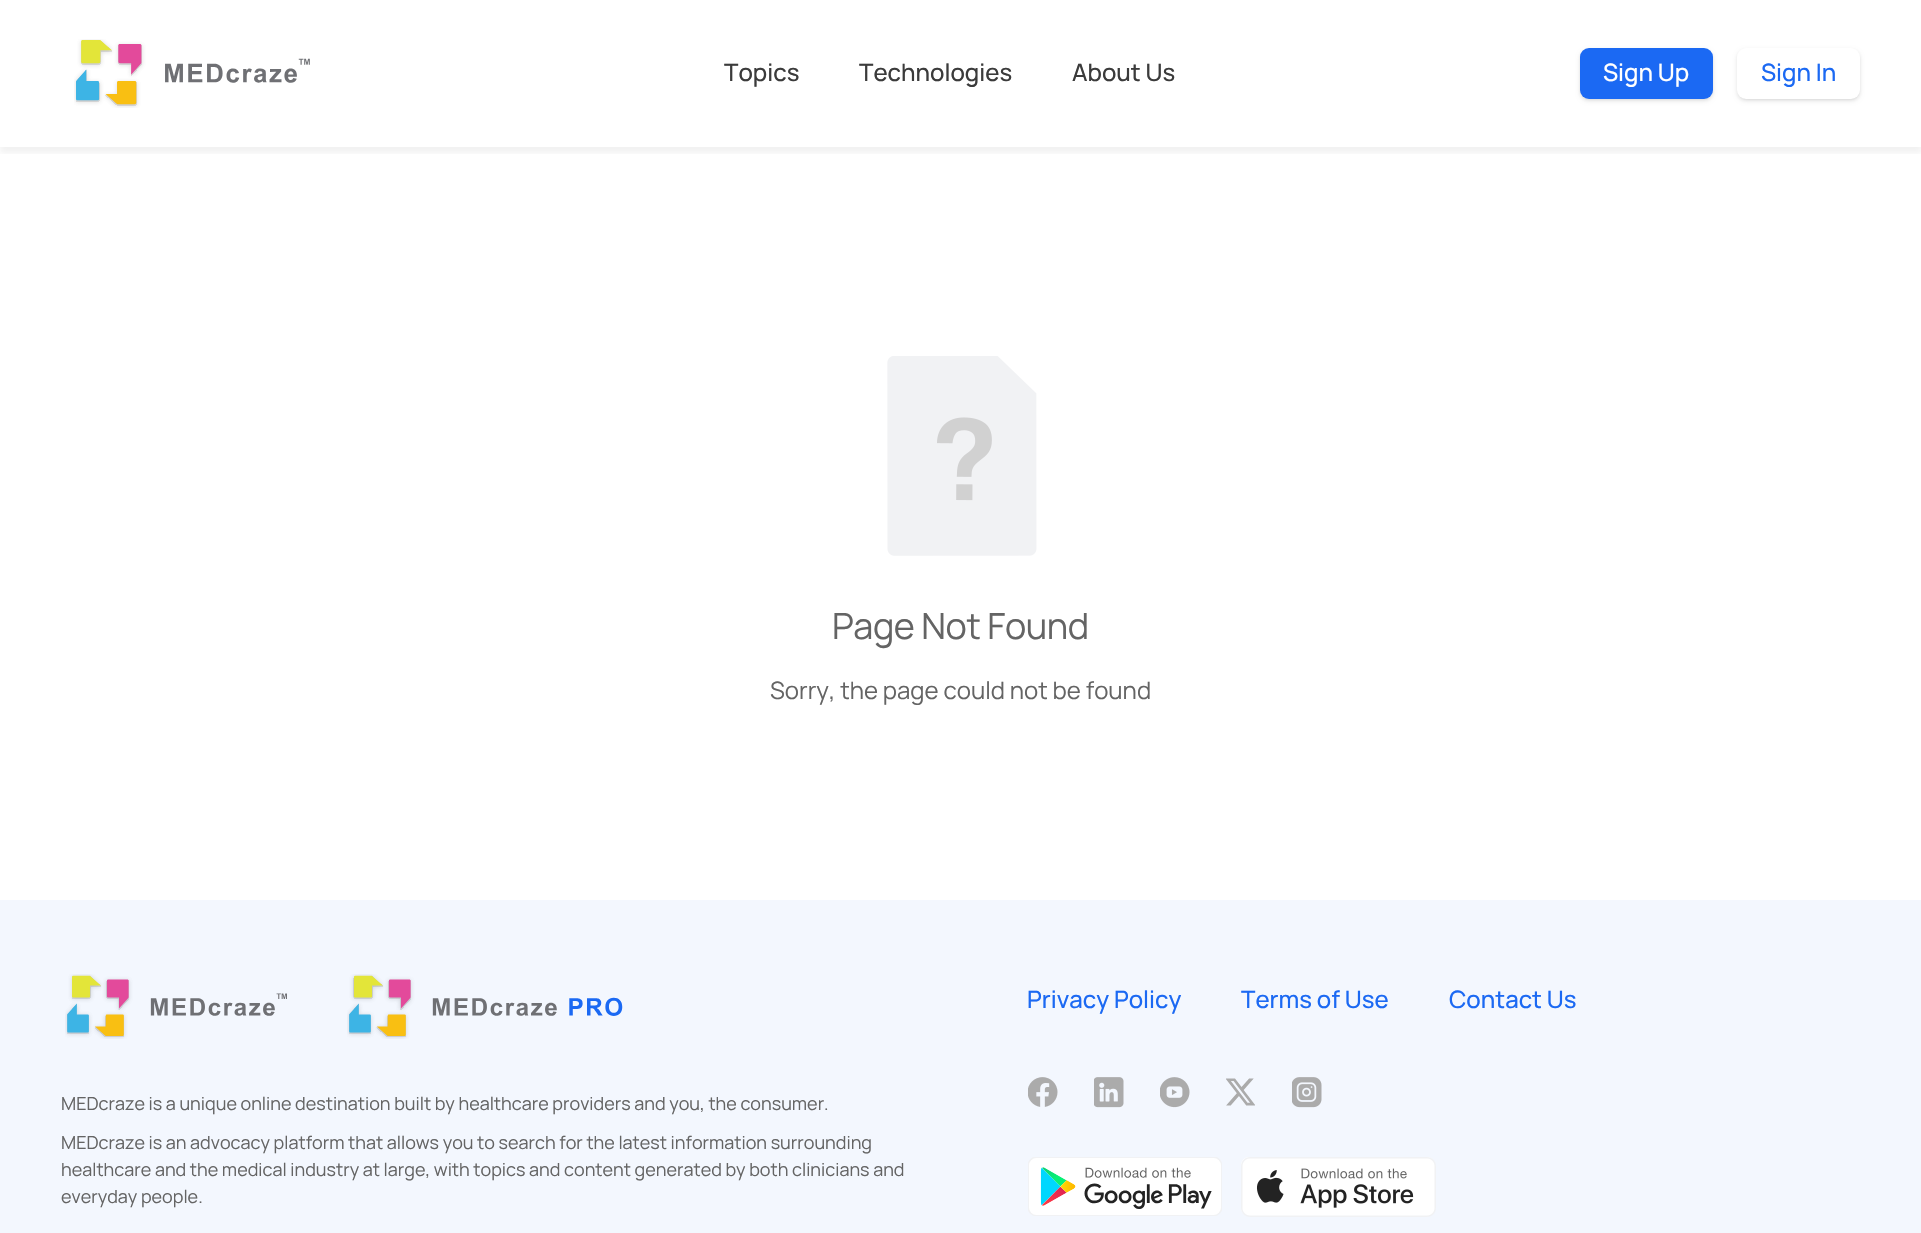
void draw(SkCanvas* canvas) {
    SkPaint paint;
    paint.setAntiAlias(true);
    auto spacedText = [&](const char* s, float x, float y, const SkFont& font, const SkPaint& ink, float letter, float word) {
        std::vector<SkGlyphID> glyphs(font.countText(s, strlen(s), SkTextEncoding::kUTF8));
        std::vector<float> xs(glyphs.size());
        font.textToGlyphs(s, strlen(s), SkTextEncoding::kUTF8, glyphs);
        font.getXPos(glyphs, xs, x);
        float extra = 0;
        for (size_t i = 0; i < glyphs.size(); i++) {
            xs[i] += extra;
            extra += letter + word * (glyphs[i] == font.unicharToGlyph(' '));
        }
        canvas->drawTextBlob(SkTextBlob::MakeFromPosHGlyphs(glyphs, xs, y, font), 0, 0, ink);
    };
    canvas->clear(0xFFFFFFFF);
    canvas->save();
    canvas->clipRect(SkRect::MakeXYWH(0, 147, 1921, 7));
    paint.setColor(0x0D000000);
    paint.setMaskFilter(SkMaskFilter::MakeBlur(kNormal_SkBlurStyle, 3));
    canvas->drawRect(SkRect::MakeXYWH(0, 6, 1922, 147), paint);
    paint.setMaskFilter(nullptr);
    canvas->restore();
    canvas->drawImageRect(SkImages::DeferredFromEncodedData(SkData::MakeFromFileName("img1.png")), SkRect::MakeXYWH(74, 39, 236, 69), SkSamplingOptions());
    SkFont font1(fontMgr->matchFamilyStyle("Manrope", SkFontStyle(500, SkFontStyle::kNormal_Width, SkFontStyle::kUpright_Slant)), 24);
    font1.setSubpixel(true);
    paint.setColor(0xFF3B3B3B);
    canvas->drawString("Topics", 724, 81, font1, paint);
    canvas->drawString("Technologies", 859, 81, font1, paint);
    canvas->drawString("About Us", 1072, 81, font1, paint);
    paint.setColor(0x1A000000);
    paint.setMaskFilter(SkMaskFilter::MakeBlur(kNormal_SkBlurStyle, 1.5f));
    canvas->drawRoundRect(SkRect::MakeXYWH(1581, 51, 131, 48), 8, 8, paint);
    paint.setMaskFilter(nullptr);
    paint.setMaskFilter(SkMaskFilter::MakeBlur(kNormal_SkBlurStyle, 2));
    canvas->drawRoundRect(SkRect::MakeXYWH(1580, 50, 133, 51), 9, 9, paint);
    paint.setMaskFilter(nullptr);
    paint.setColor(0xFF1B69F3);
    canvas->drawRoundRect(SkRect::MakeXYWH(1580, 48, 133, 51), 9, 9, paint);
    paint.setColor(0xFFFFFFFF);
    canvas->drawString("Sign Up", 1603, 81, font1, paint);
    paint.setColor(0x1A000000);
    paint.setMaskFilter(SkMaskFilter::MakeBlur(kNormal_SkBlurStyle, 1.5f));
    canvas->drawRoundRect(SkRect::MakeXYWH(1739, 51, 120, 48), 8, 8, paint);
    paint.setMaskFilter(nullptr);
    paint.setMaskFilter(SkMaskFilter::MakeBlur(kNormal_SkBlurStyle, 2));
    canvas->drawRoundRect(SkRect::MakeXYWH(1737, 50, 123, 51), 9, 9, paint);
    paint.setMaskFilter(nullptr);
    paint.setColor(0xFFFFFFFF);
    canvas->drawRoundRect(SkRect::MakeXYWH(1737, 48, 123, 51), 9, 9, paint);
    paint.setColor(0xFF1B69F3);
    canvas->drawString("Sign In", 1761, 81, font1, paint);
    canvas->drawImageRect(SkImages::DeferredFromEncodedData(SkData::MakeFromFileName("img2.png")), SkRect::MakeXYWH(887, 356, 150, 200), SkSamplingOptions());
    SkFont font2(fontMgr->matchFamilyStyle("Manrope", SkFontStyle::Normal()), 36);
    font2.setSubpixel(true);
    paint.setColor(0xFF646464);
    spacedText("Page Not Found", 832, 639, font2, paint, -0.4f, 0);
    SkFont font3(fontMgr->matchFamilyStyle("Manrope", SkFontStyle::Normal()), 24);
    font3.setSubpixel(true);
    canvas->drawString("Sorry, the page could not be found", 770, 699, font3, paint);
    paint.setColor(0xFFF3F7FE);
    canvas->drawRect(SkRect::MakeXYWH(0, 900, 1921, 333), paint);
    paint.setColor(0xFF1B69F3);
    canvas->drawString("Privacy Policy", 1027, 1008, font1, paint);
    canvas->drawString("Terms of Use", 1241, 1008, font1, paint);
    canvas->drawString("Contact Us", 1449, 1008, font1, paint);
    canvas->drawImageRect(SkImages::DeferredFromEncodedData(SkData::MakeFromFileName("img3.png")), SkRect::MakeXYWH(1028, 1077, 30, 30), SkSamplingOptions());
    canvas->drawImageRect(SkImages::DeferredFromEncodedData(SkData::MakeFromFileName("img4.png")), SkRect::MakeXYWH(1094, 1077, 30, 31), SkSamplingOptions());
    canvas->drawImageRect(SkImages::DeferredFromEncodedData(SkData::MakeFromFileName("img5.png")), SkRect::MakeXYWH(1160, 1077, 30, 31), SkSamplingOptions());
    canvas->drawImageRect(SkImages::DeferredFromEncodedData(SkData::MakeFromFileName("img6.png")), SkRect::MakeXYWH(1226, 1078, 29, 28), SkSamplingOptions());
    canvas->drawImageRect(SkImages::DeferredFromEncodedData(SkData::MakeFromFileName("img7.png")), SkRect::MakeXYWH(1292, 1077, 30, 31), SkSamplingOptions());
    canvas->drawImageRect(SkImages::DeferredFromEncodedData(SkData::MakeFromFileName("img8.png")), SkRect::MakeXYWH(1028, 1157, 194, 59), SkSamplingOptions());
    canvas->drawImageRect(SkImages::DeferredFromEncodedData(SkData::MakeFromFileName("img9.png")), SkRect::MakeXYWH(1241, 1157, 195, 60), SkSamplingOptions());
    canvas->drawImageRect(SkImages::DeferredFromEncodedData(SkData::MakeFromFileName("img10.png")), SkRect::MakeXYWH(65, 974, 222, 65), SkSamplingOptions());
    canvas->drawImageRect(SkImages::DeferredFromEncodedData(SkData::MakeFromFileName("img11.png")), SkRect::MakeXYWH(347, 974, 276, 65), SkSamplingOptions());
    SkFont font4(fontMgr->matchFamilyStyle("Manrope", SkFontStyle::Normal()), 18);
    font4.setSubpixel(true);
    paint.setColor(0xFF646464);
    canvas->drawString("MEDcraze is a unique online destination built by healthcare providers and you, the consumer.", 61, 1110, font4, paint);
    canvas->drawString("MEDcraze is an advocacy platform that allows you to search for the latest information surrounding", 61, 1149, font4, paint);
    canvas->drawString("healthcare and the medical industry at large, with topics and content generated by both clinicians and", 61, 1176, font4, paint);
    canvas->drawString("everyday people.", 61, 1203, font4, paint);
}
